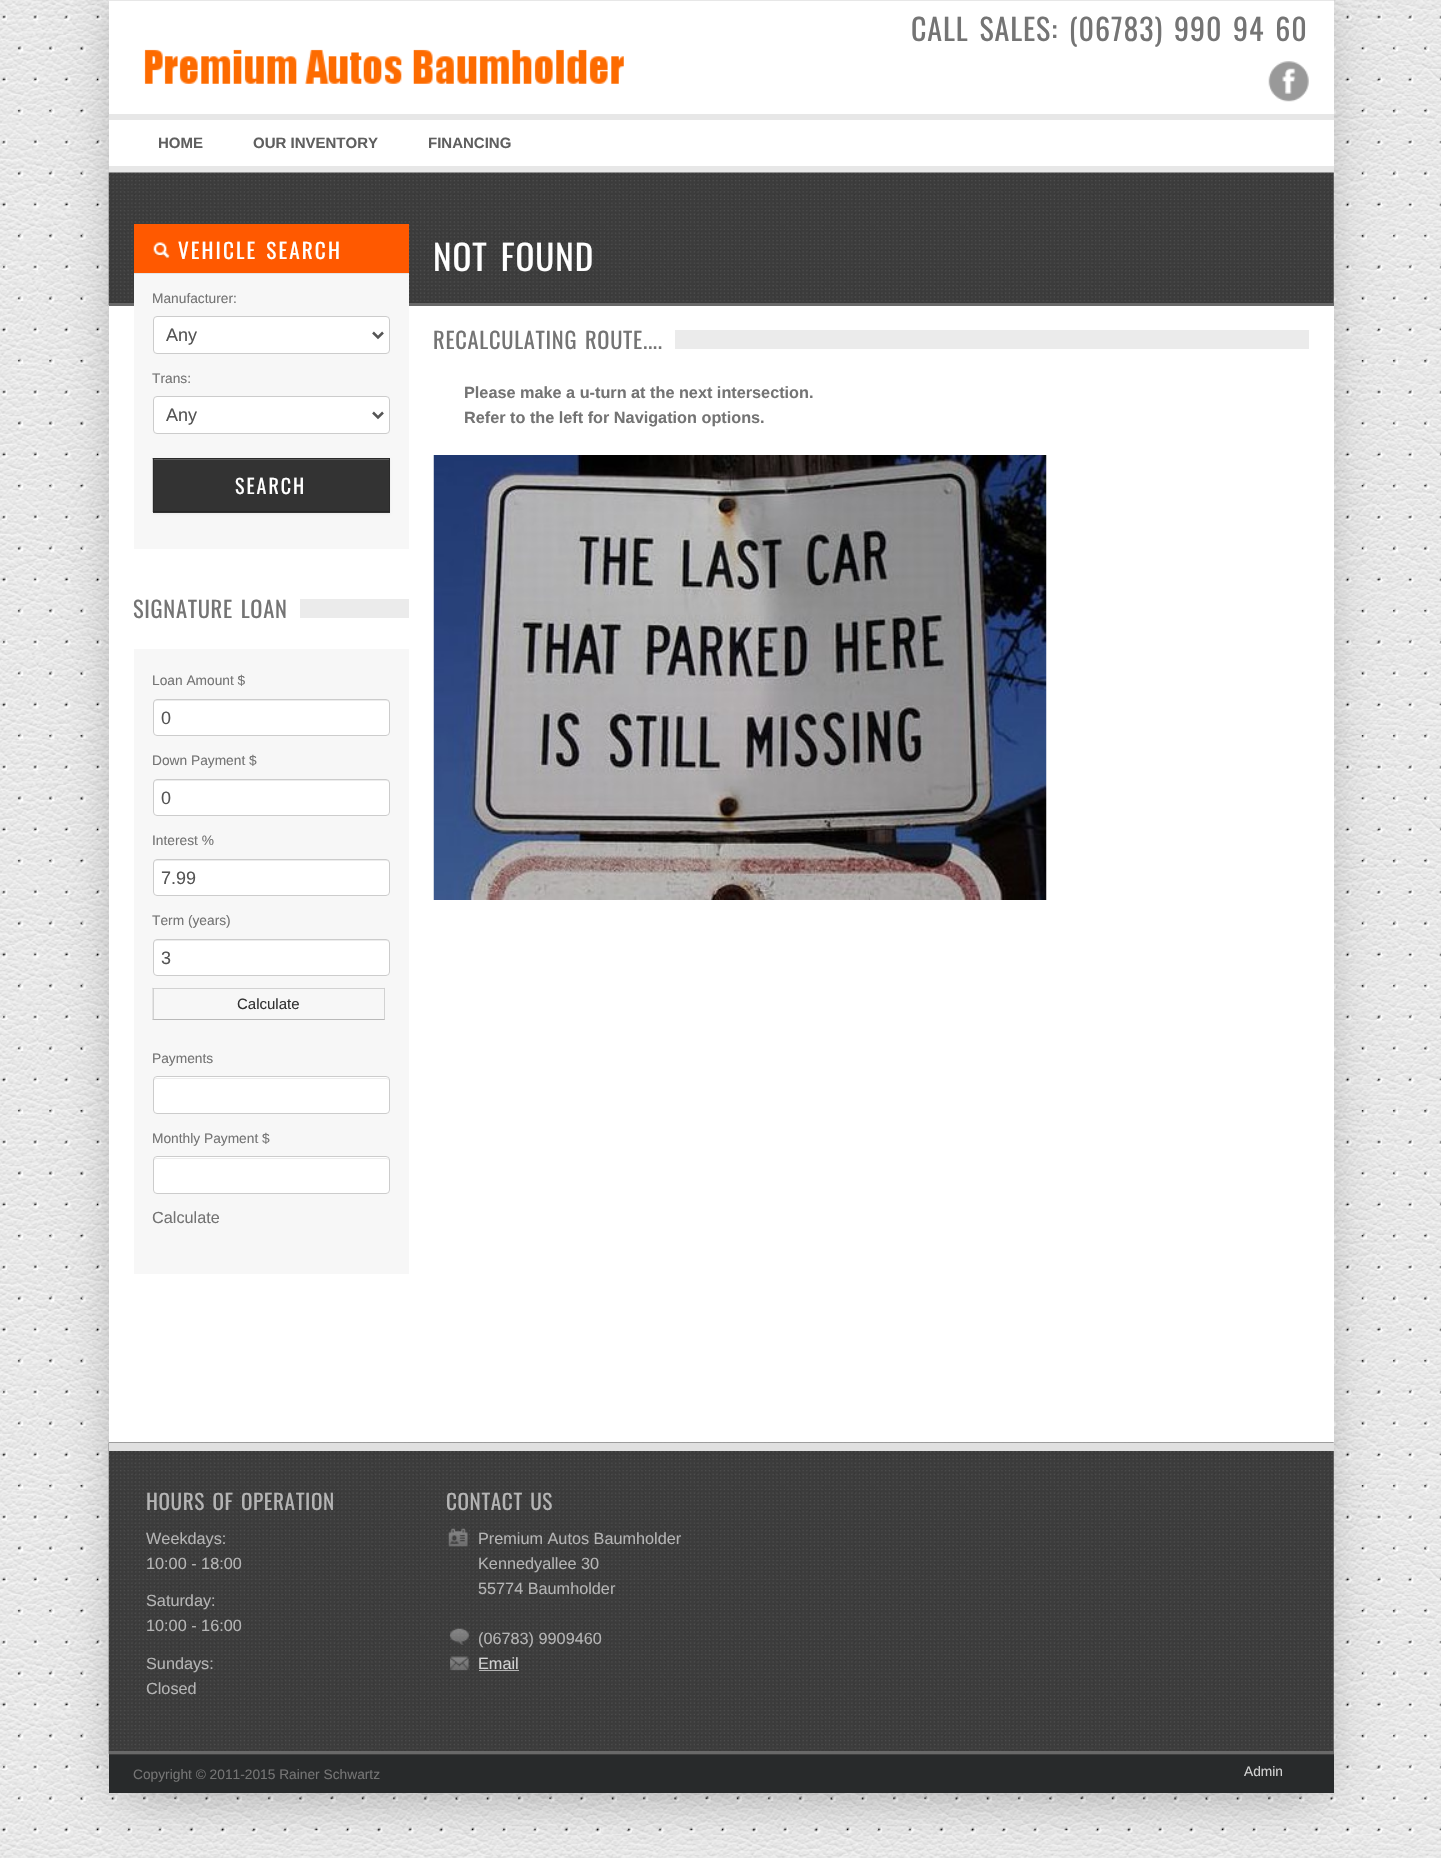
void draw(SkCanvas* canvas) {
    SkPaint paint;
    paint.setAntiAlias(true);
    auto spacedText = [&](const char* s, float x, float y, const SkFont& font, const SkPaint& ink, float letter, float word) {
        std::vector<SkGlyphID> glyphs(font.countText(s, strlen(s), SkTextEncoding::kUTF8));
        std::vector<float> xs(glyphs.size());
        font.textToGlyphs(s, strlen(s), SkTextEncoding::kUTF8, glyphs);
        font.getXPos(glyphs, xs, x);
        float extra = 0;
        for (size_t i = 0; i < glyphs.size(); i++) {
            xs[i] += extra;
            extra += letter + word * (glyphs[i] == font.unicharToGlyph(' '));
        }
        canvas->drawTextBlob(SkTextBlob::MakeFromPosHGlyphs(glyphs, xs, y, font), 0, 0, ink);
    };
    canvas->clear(0xFFFFFFFF);
    canvas->drawImageRect(SkImages::DeferredFromEncodedData(SkData::MakeFromFileName("img1.png")), SkRect::MakeXYWH(0, 0, 1441, 1858), SkSamplingOptions());
    paint.setColor(0x4D000000);
    paint.setMaskFilter(SkMaskFilter::MakeBlur(kNormal_SkBlurStyle, 25));
    canvas->drawRect(SkRect::MakeXYWH(121, 0, 1200, 1793), paint);
    paint.setMaskFilter(nullptr);
    paint.setColor(0xFFE7E7E7);
    canvas->drawRect(SkRect::MakeXYWH(109, 0, 1225, 1), paint);
    paint.setColor(0xFFFFFFFF);
    canvas->drawRect(SkRect::MakeXYWH(109, 1, 1225, 113), paint);
    SkFont font1(fontMgr->matchFamilyStyle("Oswald", SkFontStyle::Normal()), 30);
    font1.setSubpixel(true);
    paint.setColor(0xFF747474);
    spacedText("CALL SALES: (06783) 990 94 60", 911, 41, font1, paint, 0.9f, 3);
    canvas->drawImageRect(SkImages::DeferredFromEncodedData(SkData::MakeFromFileName("img2.png")), SkRect::MakeXYWH(1268, 61, 41, 41), SkSamplingOptions());
    canvas->drawImageRect(SkImages::DeferredFromEncodedData(SkData::MakeFromFileName("img3.png")), SkRect::MakeXYWH(144, 49, 480, 35), SkSamplingOptions());
    paint.setColor(0xFFFFFFFF);
    canvas->drawRect(SkRect::MakeXYWH(109, 120, 1225, 46), paint);
    paint.setColor(0xFFE7E7E7);
    canvas->drawRect(SkRect::MakeXYWH(109, 114, 1225, 6), paint);
    canvas->drawRect(SkRect::MakeXYWH(109, 166, 1225, 7), paint);
    SkFont font2(fontMgr->matchFamilyStyle("Liberation Sans", SkFontStyle::Bold()), 15);
    font2.setSubpixel(true);
    paint.setColor(0xFF5F5F5F);
    canvas->drawString("HOME", 158, 148, font2, paint);
    canvas->drawString("OUR INVENTORY", 253, 148, font2, paint);
    canvas->drawString("FINANCING", 428, 148, font2, paint);
    paint.setColor(0xFFFFFFFF);
    canvas->drawRect(SkRect::MakeXYWH(109, 306, 1225, 1137), paint);
    canvas->drawImageRect(SkImages::DeferredFromEncodedData(SkData::MakeFromFileName("img6.png")), SkRect::MakeXYWH(108, 172, 1226, 133), SkSamplingOptions());
    paint.setColor(0xFFFF5900);
    canvas->drawRect(SkRect::MakeXYWH(134, 224, 275, 49), paint);
    canvas->drawImageRect(SkImages::DeferredFromEncodedData(SkData::MakeFromFileName("img4.png")), SkRect::MakeXYWH(153, 242, 17, 17), SkSamplingOptions());
    SkFont font3(fontMgr->matchFamilyStyle("Oswald", SkFontStyle::Normal()), 21.25f);
    font3.setSubpixel(true);
    paint.setColor(0xFFFFFFFF);
    spacedText("VEHICLE SEARCH", 178, 259, font3, paint, 2.1f, 2);
    paint.setColor(0xFF696969);
    canvas->drawRect(SkRect::MakeXYWH(109, 303, 1225, 3), paint);
    paint.setColor(0xFFF7F7F7);
    canvas->drawRect(SkRect::MakeXYWH(134, 274, 275, 275), paint);
    paint.setColor(0xFFE5E5E5);
    canvas->drawRect(SkRect::MakeXYWH(134, 273, 275, 1), paint);
    SkFont font4(fontMgr->matchFamilyStyle("Liberation Sans", SkFontStyle::Normal()), 13.75f);
    font4.setSubpixel(true);
    paint.setColor(0xFF747474);
    canvas->drawString("Manufacturer:", 152, 303, font4, paint);
    paint.setColor(0xFFFFFFFF);
    canvas->drawRoundRect(SkRect::MakeXYWH(153.5f, 316.5f, 236, 37), 3.5f, 3.5f, paint);
    paint.setStyle(SkPaint::kStroke_Style);
    paint.setStrokeWidth(1);
    paint.setColor(0xFFCCCCCC);
    canvas->drawRoundRect(SkRect::MakeXYWH(153.5f, 316.5f, 236, 37), 3.5f, 3.5f, paint);
    paint.setStrokeWidth(2.5f);
    paint.setColor(0xFF555555);
    canvas->drawPath(SkPathBuilder().moveTo(373, 332.5f).lineTo(378, 337.5f).lineTo(383, 332.5f).detach(), paint);
    SkFont font5(fontMgr->matchFamilyStyle("Liberation Sans", SkFontStyle::Normal()), 18);
    font5.setSubpixel(true);
    paint.setStyle(SkPaint::kFill_Style);
    canvas->drawString("Any", 166, 341, font5, paint);
    paint.setColor(0xFF747474);
    canvas->drawString("Trans:", 152, 383, font4, paint);
    paint.setColor(0xFFFFFFFF);
    canvas->drawRoundRect(SkRect::MakeXYWH(153.5f, 396.5f, 236, 37), 3.5f, 3.5f, paint);
    paint.setStyle(SkPaint::kStroke_Style);
    paint.setStrokeWidth(1);
    paint.setColor(0xFFCCCCCC);
    canvas->drawRoundRect(SkRect::MakeXYWH(153.5f, 396.5f, 236, 37), 3.5f, 3.5f, paint);
    paint.setStrokeWidth(2.5f);
    paint.setColor(0xFF555555);
    canvas->drawPath(SkPathBuilder().moveTo(373, 412.5f).lineTo(378, 417.5f).lineTo(383, 412.5f).detach(), paint);
    paint.setStyle(SkPaint::kFill_Style);
    canvas->drawString("Any", 166, 421, font5, paint);
    paint.setColor(0x0D000000);
    paint.setMaskFilter(SkMaskFilter::MakeBlur(kNormal_SkBlurStyle, 1));
    canvas->drawRect(SkRect::MakeXYWH(153, 459, 237, 55), paint);
    paint.setMaskFilter(nullptr);
    paint.setColor(0xFF333333);
    canvas->drawRect(SkRect::MakeXYWH(153, 458, 237, 55), paint);
    paint.setColor(0xFF5C5C5C);
    canvas->drawRect(SkRect::MakeXYWH(154, 459, 235, 1), paint);
    paint.setColor(0xFF2B2B2B);
    canvas->drawPath(SkPathBuilder().moveTo(152, 458).lineTo(390, 458).lineTo(389, 459).lineTo(154, 459).close().detach(), paint);
    paint.setColor(0x26000000);
    canvas->drawPath(SkPathBuilder().moveTo(390, 458).lineTo(390, 512).lineTo(389, 511).lineTo(389, 459).close().detach(), paint);
    paint.setColor(0x40000000);
    canvas->drawPath(SkPathBuilder().moveTo(390, 512).lineTo(152, 512).lineTo(154, 511).lineTo(389, 511).close().detach(), paint);
    paint.setColor(0x26000000);
    canvas->drawPath(SkPathBuilder().moveTo(152, 512).lineTo(152, 458).lineTo(154, 459).lineTo(154, 511).close().detach(), paint);
    SkFont font6(fontMgr->matchFamilyStyle("Oswald", SkFontStyle::Normal()), 20);
    font6.setSubpixel(true);
    paint.setColor(0xFFFFFFFF);
    spacedText("SEARCH", 235, 494, font6, paint, 2, 0);
    paint.setColor(0xFFEBEBEB);
    canvas->drawRect(SkRect::MakeXYWH(300, 599, 109, 19), paint);
    SkFont font7(fontMgr->matchFamilyStyle("Oswald", SkFontStyle::Normal()), 22.5f);
    font7.setSubpixel(true);
    paint.setColor(0xFF747474);
    spacedText("SIGNATURE LOAN", 133, 618, font7, paint, 0.7f, 2);
    paint.setColor(0xFFF7F7F7);
    canvas->drawRect(SkRect::MakeXYWH(134, 649, 275, 625), paint);
    paint.setColor(0xFF747474);
    canvas->drawString("Loan Amount $", 152, 685, font4, paint);
    paint.setColor(0xFFFFFFFF);
    canvas->drawRoundRect(SkRect::MakeXYWH(153, 699, 237, 37), 4, 4, paint);
    paint.setColor(0xFFECECEC);
    canvas->drawPath(SkPathBuilder().moveTo(156, 701).lineTo(387, 701).lineTo(389, 702).lineTo(389, 704).cubicTo(389, 702, 389, 700, 386, 700).lineTo(156, 700).cubicTo(154, 700, 154, 702, 154, 704).cubicTo(154, 702, 155, 701, 156, 701).close().detach(), paint);
    paint.setStyle(SkPaint::kStroke_Style);
    paint.setStrokeWidth(1);
    paint.setColor(0xFFCCCCCC);
    canvas->drawRoundRect(SkRect::MakeXYWH(153.5f, 699.5f, 236, 36), 3.5f, 3.5f, paint);
    paint.setStyle(SkPaint::kFill_Style);
    paint.setColor(0xFF555555);
    canvas->drawString("0", 161, 724, font5, paint);
    paint.setColor(0xFF747474);
    canvas->drawString("Down Payment $", 152, 765, font4, paint);
    paint.setColor(0xFFFFFFFF);
    canvas->drawRoundRect(SkRect::MakeXYWH(153, 779, 237, 37), 4, 4, paint);
    paint.setColor(0xFFECECEC);
    canvas->drawPath(SkPathBuilder().moveTo(156, 781).lineTo(387, 781).lineTo(389, 782).lineTo(389, 784).cubicTo(389, 782, 389, 780, 386, 780).lineTo(156, 780).cubicTo(154, 780, 154, 782, 154, 784).cubicTo(154, 782, 155, 781, 156, 781).close().detach(), paint);
    paint.setStyle(SkPaint::kStroke_Style);
    paint.setColor(0xFFCCCCCC);
    canvas->drawRoundRect(SkRect::MakeXYWH(153.5f, 779.5f, 236, 36), 3.5f, 3.5f, paint);
    paint.setStyle(SkPaint::kFill_Style);
    paint.setColor(0xFF555555);
    canvas->drawString("0", 161, 804, font5, paint);
    paint.setColor(0xFF747474);
    canvas->drawString("Interest %", 152, 845, font4, paint);
    paint.setColor(0xFFFFFFFF);
    canvas->drawRoundRect(SkRect::MakeXYWH(153, 859, 237, 37), 4, 4, paint);
    paint.setColor(0xFFECECEC);
    canvas->drawPath(SkPathBuilder().moveTo(156, 861).lineTo(387, 861).lineTo(389, 862).lineTo(389, 864).cubicTo(389, 862, 389, 860, 386, 860).lineTo(156, 860).cubicTo(154, 860, 154, 862, 154, 864).cubicTo(154, 862, 155, 861, 156, 861).close().detach(), paint);
    paint.setStyle(SkPaint::kStroke_Style);
    paint.setColor(0xFFCCCCCC);
    canvas->drawRoundRect(SkRect::MakeXYWH(153.5f, 859.5f, 236, 36), 3.5f, 3.5f, paint);
    paint.setStyle(SkPaint::kFill_Style);
    paint.setColor(0xFF555555);
    canvas->drawString("7.99", 161, 884, font5, paint);
    paint.setColor(0xFF747474);
    canvas->drawString("Term (years)", 152, 925, font4, paint);
    paint.setColor(0xFFFFFFFF);
    canvas->drawRoundRect(SkRect::MakeXYWH(153, 939, 237, 37), 4, 4, paint);
    paint.setColor(0xFFECECEC);
    canvas->drawPath(SkPathBuilder().moveTo(156, 941).lineTo(387, 941).lineTo(389, 942).lineTo(389, 944).cubicTo(389, 942, 389, 940, 386, 940).lineTo(156, 940).cubicTo(154, 940, 154, 942, 154, 944).cubicTo(154, 942, 155, 941, 156, 941).close().detach(), paint);
    paint.setStyle(SkPaint::kStroke_Style);
    paint.setColor(0xFFCCCCCC);
    canvas->drawRoundRect(SkRect::MakeXYWH(153.5f, 939.5f, 236, 36), 3.5f, 3.5f, paint);
    paint.setStyle(SkPaint::kFill_Style);
    paint.setColor(0xFF555555);
    canvas->drawString("3", 161, 964, font5, paint);
    paint.setColor(0xFFD2D2D2);
    canvas->drawPath(SkPathBuilder().moveTo(152, 988).lineTo(385, 988).lineTo(384, 989).lineTo(154, 989).close().detach(), paint);
    paint.setColor(0x26000000);
    canvas->drawPath(SkPathBuilder().moveTo(385, 987.5f).lineTo(385, 1020).lineTo(384, 1019).lineTo(384, 989).close().detach(), paint);
    paint.setColor(0x40000000);
    canvas->drawPath(SkPathBuilder().moveTo(385, 1020).lineTo(152, 1020).lineTo(154, 1019).lineTo(384, 1019).close().detach(), paint);
    paint.setColor(0x26000000);
    canvas->drawPath(SkPathBuilder().moveTo(152.5f, 1020).lineTo(152.5f, 987.5f).lineTo(154, 989).lineTo(154, 1019).close().detach(), paint);
    SkFont font8(fontMgr->matchFamilyStyle("Liberation Sans", SkFontStyle::Normal()), 15);
    font8.setSubpixel(true);
    paint.setColor(0xFF333333);
    canvas->drawString("Calculate", 237, 1009, font8, paint);
    paint.setColor(0xFF747474);
    canvas->drawString("Payments", 152, 1063, font4, paint);
    paint.setColor(0xFFFFFFFF);
    canvas->drawRoundRect(SkRect::MakeXYWH(153, 1076, 237, 38), 4, 4, paint);
    paint.setColor(0xFFECECEC);
    canvas->drawPath(SkPathBuilder().moveTo(156, 1079).lineTo(386, 1079).cubicTo(388, 1079, 389, 1080, 389, 1081).cubicTo(389, 1079, 388, 1078, 386, 1078).lineTo(156, 1078).lineTo(154, 1079).lineTo(154, 1081).cubicTo(154, 1080, 155, 1079, 156, 1079).close().detach(), paint);
    paint.setStyle(SkPaint::kStroke_Style);
    paint.setColor(0xFFCCCCCC);
    canvas->drawRoundRect(SkRect::MakeXYWH(153.5f, 1076.5f, 236, 37), 3.5f, 3.5f, paint);
    paint.setStyle(SkPaint::kFill_Style);
    paint.setColor(0xFF747474);
    canvas->drawString("Monthly Payment $", 152, 1143, font4, paint);
    paint.setColor(0xFFFFFFFF);
    canvas->drawRoundRect(SkRect::MakeXYWH(153, 1156, 237, 38), 4, 4, paint);
    paint.setColor(0xFFECECEC);
    canvas->drawPath(SkPathBuilder().moveTo(156, 1159).lineTo(386, 1159).cubicTo(388, 1159, 389, 1160, 389, 1161).cubicTo(389, 1159, 388, 1158, 386, 1158).lineTo(156, 1158).lineTo(154, 1159).lineTo(154, 1161).cubicTo(154, 1160, 155, 1159, 156, 1159).close().detach(), paint);
    paint.setStyle(SkPaint::kStroke_Style);
    paint.setColor(0xFFCCCCCC);
    canvas->drawRoundRect(SkRect::MakeXYWH(153.5f, 1156.5f, 236, 37), 3.5f, 3.5f, paint);
    SkFont font9(fontMgr->matchFamilyStyle("Liberation Sans", SkFontStyle::Normal()), 16.25f);
    font9.setSubpixel(true);
    paint.setStyle(SkPaint::kFill_Style);
    paint.setColor(0xFF747474);
    canvas->drawString("Calculate", 152, 1223, font9, paint);
    paint.setColor(0xFFEBEBEB);
    canvas->drawRect(SkRect::MakeXYWH(675, 330, 634, 19), paint);
    paint.setColor(0xFF747474);
    spacedText("RECALCULATING ROUTE....", 433, 349, font7, paint, 0.7f, 2);
    SkFont font10(fontMgr->matchFamilyStyle("Liberation Sans", SkFontStyle::Bold()), 16.25f);
    font10.setSubpixel(true);
    canvas->drawString("Please make a u-turn at the next intersection.", 464, 398, font10, paint);
    canvas->drawString("Refer to the left for Navigation options.", 464, 423, font10, paint);
    canvas->drawImageRect(SkImages::DeferredFromEncodedData(SkData::MakeFromFileName("img5.png")), SkRect::MakeXYWH(433, 455, 614, 445), SkSamplingOptions());
    SkFont font11(fontMgr->matchFamilyStyle("Oswald", SkFontStyle::Normal()), 35);
    font11.setSubpixel(true);
    paint.setColor(0xFFFFFFFF);
    spacedText("NOT FOUND", 433, 271, font11, paint, 1, 4);
    canvas->drawImageRect(SkImages::DeferredFromEncodedData(SkData::MakeFromFileName("img7.png")), SkRect::MakeXYWH(108, 1442, 1226, 312), SkSamplingOptions());
    paint.setColor(0xFFE0E0E0);
    canvas->drawRect(SkRect::MakeXYWH(109, 1443, 1225, 8), paint);
    paint.setColor(0xFF696969);
    canvas->drawRect(SkRect::MakeXYWH(109, 1751, 1225, 3), paint);
    paint.setColor(0xFFB4B4B4);
    spacedText("HOURS OF OPERATION", 146, 1510, font3, paint, 0.6f, 2);
    canvas->drawString("Weekdays:", 146, 1544, font9, paint);
    canvas->drawString("10:00 - 18:00", 146, 1569, font9, paint);
    canvas->drawString("Saturday:", 146, 1606, font9, paint);
    canvas->drawString("10:00 - 16:00", 146, 1631, font9, paint);
    canvas->drawString("Sundays:", 146, 1669, font9, paint);
    canvas->drawString("Closed", 146, 1694, font9, paint);
    spacedText("CONTACT US", 446, 1510, font3, paint, 0.6f, 2);
    canvas->drawImageRect(SkImages::DeferredFromEncodedData(SkData::MakeFromFileName("img8.png")), SkRect::MakeXYWH(448, 1528, 20, 19), SkSamplingOptions());
    canvas->drawString("Premium Autos Baumholder", 478, 1544, font9, paint);
    canvas->drawString("Kennedyallee 30", 478, 1569, font9, paint);
    canvas->drawString("55774 Baumholder", 478, 1594, font9, paint);
    canvas->drawImageRect(SkImages::DeferredFromEncodedData(SkData::MakeFromFileName("img9.png")), SkRect::MakeXYWH(450, 1628, 19, 17), SkSamplingOptions());
    canvas->drawString("(06783) 9909460", 478, 1644, font9, paint);
    canvas->drawImageRect(SkImages::DeferredFromEncodedData(SkData::MakeFromFileName("img10.png")), SkRect::MakeXYWH(450, 1656, 19, 15), SkSamplingOptions());
    paint.setColor(0xFFD3D3D3);
    canvas->drawString("Email", 478, 1669, font9, paint);
    paint.setColor(0xFFB4B4B4);
    canvas->drawRect(SkRect::MakeXYWH(479, 1670, 40, 1), paint);
    paint.setColor(0xFF282A2B);
    canvas->drawRect(SkRect::MakeXYWH(109, 1755, 1225, 38), paint);
    paint.setColor(0xFF3F3F3F);
    canvas->drawRect(SkRect::MakeXYWH(109, 1754, 1225, 1), paint);
    paint.setColor(0xFF747474);
    canvas->drawString("Copyright © 2011-2015 Rainer Schwartz", 133, 1779, font4, paint);
    paint.setColor(0xFFD3D3D3);
    canvas->drawString("Admin", 1244, 1776, font4, paint);
}
